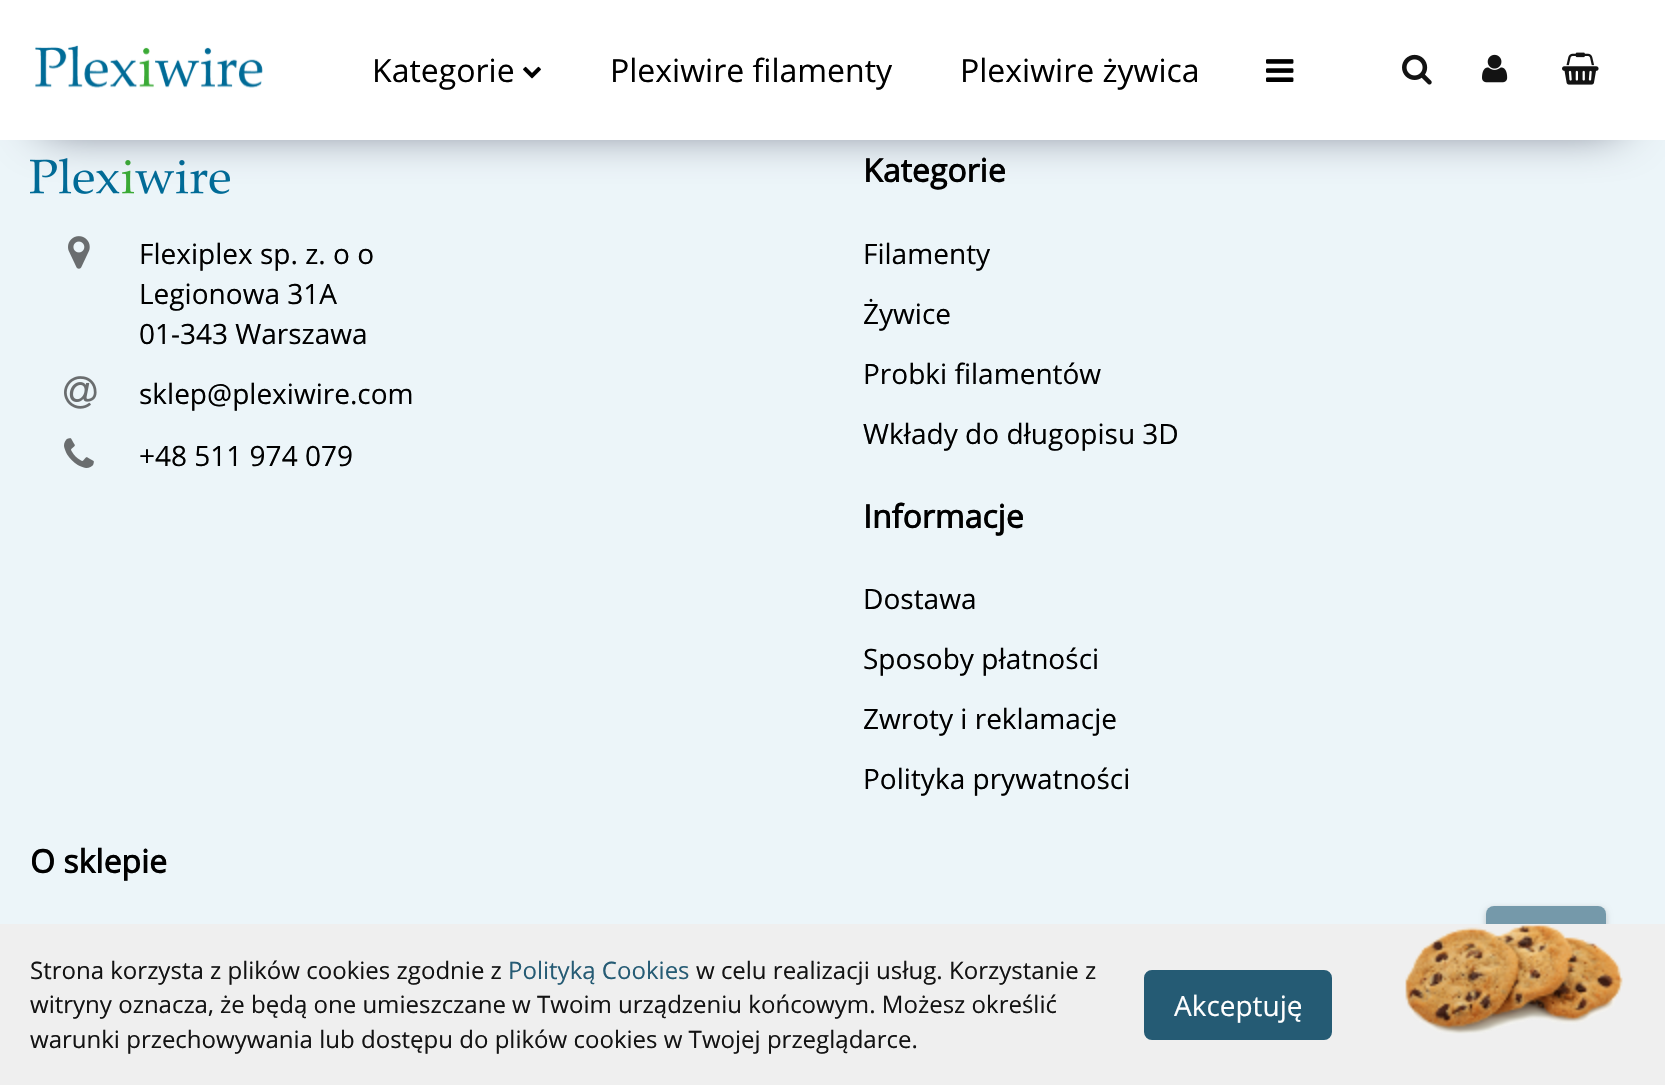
void draw(SkCanvas* canvas) {
    SkPaint paint;
    paint.setAntiAlias(true);
    canvas->clear(0xFFECF5F9);
    canvas->drawImageRect(SkImages::DeferredFromEncodedData(SkData::MakeFromFileName("img7.png")), SkRect::MakeXYWH(30, 158, 200, 36), SkSamplingOptions());
    paint.setColor(0xFF42445A);
    paint.setMaskFilter(SkMaskFilter::MakeBlur(kNormal_SkBlurStyle, 25));
    canvas->drawRect(SkRect::MakeXYWH(44, 76, 1574, 48), paint);
    paint.setMaskFilter(nullptr);
    paint.setColor(0xFFFFFFFF);
    canvas->drawRect(SkRect::MakeXYWH(0, 0, 1665, 140), paint);
    canvas->drawImageRect(SkImages::DeferredFromEncodedData(SkData::MakeFromFileName("img1.png")), SkRect::MakeXYWH(35, 45, 228, 43), SkSamplingOptions());
    SkFont font1(fontMgr->matchFamilyStyle("Open Sans", SkFontStyle::Normal()), 32);
    font1.setSubpixel(true);
    paint.setColor(0xFF000000);
    canvas->drawString("Kategorie", 372, 82, font1, paint);
    canvas->drawImageRect(SkImages::DeferredFromEncodedData(SkData::MakeFromFileName("img2.png")), SkRect::MakeXYWH(523, 66, 18, 13), SkSamplingOptions());
    canvas->drawString("Plexiwire filamenty", 610, 82, font1, paint);
    canvas->drawString("Plexiwire żywica", 960, 82, font1, paint);
    canvas->drawImageRect(SkImages::DeferredFromEncodedData(SkData::MakeFromFileName("img3.png")), SkRect::MakeXYWH(1266, 59, 28, 23), SkSamplingOptions());
    canvas->drawImageRect(SkImages::DeferredFromEncodedData(SkData::MakeFromFileName("img4.png")), SkRect::MakeXYWH(1402, 54, 30, 31), SkSamplingOptions());
    canvas->drawImageRect(SkImages::DeferredFromEncodedData(SkData::MakeFromFileName("img5.png")), SkRect::MakeXYWH(1482, 54, 26, 29), SkSamplingOptions());
    canvas->drawImageRect(SkImages::DeferredFromEncodedData(SkData::MakeFromFileName("img6.png")), SkRect::MakeXYWH(1562, 52, 37, 33), SkSamplingOptions());
    canvas->drawImageRect(SkImages::DeferredFromEncodedData(SkData::MakeFromFileName("img8.png")), SkRect::MakeXYWH(68, 236, 22, 33), SkSamplingOptions());
    SkFont font2(fontMgr->matchFamilyStyle("Open Sans", SkFontStyle::Normal()), 28);
    font2.setSubpixel(true);
    canvas->drawString("Flexiplex sp. z. o o", 139, 264, font2, paint);
    canvas->drawString("Legionowa 31A", 139, 304, font2, paint);
    canvas->drawString("01-343 Warszawa", 139, 344, font2, paint);
    canvas->drawImageRect(SkImages::DeferredFromEncodedData(SkData::MakeFromFileName("img9.png")), SkRect::MakeXYWH(64, 376, 33, 33), SkSamplingOptions());
    canvas->drawString("sklep@plexiwire.com", 139, 404, font2, paint);
    canvas->drawImageRect(SkImages::DeferredFromEncodedData(SkData::MakeFromFileName("img10.png")), SkRect::MakeXYWH(64, 438, 30, 30), SkSamplingOptions());
    canvas->drawString("+48 511 974 079", 139, 466, font2, paint);
    SkFont font3(fontMgr->matchFamilyStyle("Open Sans", SkFontStyle::Bold()), 32);
    font3.setSubpixel(true);
    canvas->drawString("Kategorie", 863, 182, font3, paint);
    canvas->drawString("Filamenty", 863, 264, font2, paint);
    canvas->drawString("Żywice", 863, 324, font2, paint);
    canvas->drawString("Probki filamentów", 863, 384, font2, paint);
    canvas->drawString("Wkłady do długopisu 3D", 863, 444, font2, paint);
    canvas->drawString("Informacje", 863, 528, font3, paint);
    canvas->drawString("Dostawa", 863, 609, font2, paint);
    canvas->drawString("Sposoby płatności", 863, 669, font2, paint);
    canvas->drawString("Zwroty i reklamacje", 863, 729, font2, paint);
    canvas->drawString("Polityka prywatności", 863, 789, font2, paint);
    canvas->drawString("O sklepie", 30, 873, font3, paint);
    canvas->save();
    canvas->clipPath(SkPathBuilder(SkPathFillType::kEvenOdd).moveTo(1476, 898).lineTo(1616, 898).lineTo(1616, 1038).lineTo(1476, 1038).close().moveTo(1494, 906).lineTo(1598, 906).cubicTo(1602.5f, 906, 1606, 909.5f, 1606, 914).lineTo(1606, 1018).cubicTo(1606, 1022.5f, 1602.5f, 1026, 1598, 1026).lineTo(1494, 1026).cubicTo(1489.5f, 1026, 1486, 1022.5f, 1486, 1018).lineTo(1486, 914).cubicTo(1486, 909.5f, 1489.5f, 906, 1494, 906).close().detach(), true);
    paint.setColor(0x33000000);
    paint.setMaskFilter(SkMaskFilter::MakeBlur(kNormal_SkBlurStyle, 3));
    canvas->drawRoundRect(SkRect::MakeXYWH(1486, 908, 120, 120), 8, 8, paint);
    paint.setMaskFilter(nullptr);
    canvas->restore();
    paint.setColor(0x99255B74);
    canvas->drawRoundRect(SkRect::MakeXYWH(1486, 906, 120, 120), 8, 8, paint);
    paint.setColor(0xFFEFEFEF);
    canvas->drawRect(SkRect::MakeXYWH(0, 924, 1665, 161), paint);
    SkFont font4(fontMgr->matchFamilyStyle("Open Sans", SkFontStyle::Normal()), 24);
    font4.setSubpixel(true);
    paint.setColor(0xFF131313);
    canvas->drawString("Strona korzysta z plików cookies zgodnie z", 30, 979, font4, paint);
    paint.setColor(0xFF255B74);
    canvas->drawString("Polityką Cookies", 508, 979, font4, paint);
    paint.setColor(0xFF131313);
    canvas->drawString("w celu realizacji usług. Korzystanie z", 696, 979, font4, paint);
    canvas->drawString("witryny oznacza, że będą one umieszczane w Twoim urządzeniu końcowym. Możesz określić", 30, 1013, font4, paint);
    canvas->drawString("warunki przechowywania lub dostępu do plików cookies w Twojej przeglądarce.", 30, 1048, font4, paint);
    paint.setColor(0xFF255B74);
    canvas->drawRoundRect(SkRect::MakeXYWH(1147, 973, 182, 64), 5, 5, paint);
    paint.setStyle(SkPaint::kStroke_Style);
    paint.setStrokeWidth(6);
    canvas->drawRoundRect(SkRect::MakeXYWH(1147, 973, 182, 64), 5, 5, paint);
    paint.setStyle(SkPaint::kFill_Style);
    paint.setColor(0xFFFFFFFF);
    canvas->drawString("Akceptuję", 1174, 1016, font2, paint);
    canvas->drawImageRect(SkImages::DeferredFromEncodedData(SkData::MakeFromFileName("img11.png")), SkRect::MakeXYWH(1405, 923, 218, 111), SkSamplingOptions());
}
